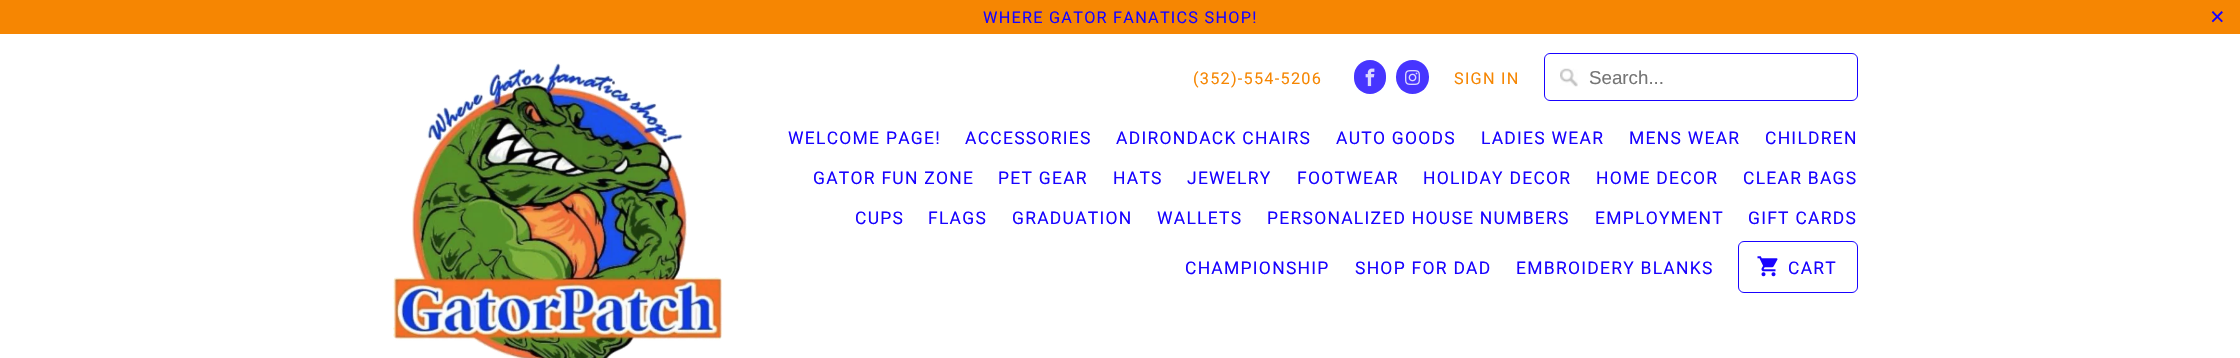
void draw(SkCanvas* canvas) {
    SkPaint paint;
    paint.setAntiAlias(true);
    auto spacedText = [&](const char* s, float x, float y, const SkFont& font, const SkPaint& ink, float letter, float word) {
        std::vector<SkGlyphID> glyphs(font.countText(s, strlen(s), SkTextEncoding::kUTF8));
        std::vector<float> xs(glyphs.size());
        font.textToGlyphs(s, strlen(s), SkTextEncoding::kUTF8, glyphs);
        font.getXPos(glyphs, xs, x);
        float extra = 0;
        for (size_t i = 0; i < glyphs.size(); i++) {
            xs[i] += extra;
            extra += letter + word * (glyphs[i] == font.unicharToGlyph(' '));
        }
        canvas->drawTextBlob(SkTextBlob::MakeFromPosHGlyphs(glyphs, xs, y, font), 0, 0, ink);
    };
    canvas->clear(0xFFFFFFFF);
    paint.setColor(0xFFF68602);
    canvas->drawRect(SkRect::MakeXYWH(0, 0, 2240, 34), paint);
    SkFont font1(fontMgr->matchFamilyStyle("Roboto", SkFontStyle::Normal()), 16.25f);
    font1.setSubpixel(true);
    paint.setColor(0xFF1903FF);
    spacedText("WHERE GATOR FANATICS SHOP!", 983, 23, font1, paint, 1.25f, 0);
    SkFont font2(fontMgr->matchFamilyStyle("Liberation Sans", SkFontStyle::Normal()), 25);
    font2.setSubpixel(true);
    spacedText("×", 2210, 25, font2, paint, 1.25f, 0);
    canvas->drawImageRect(SkImages::DeferredFromEncodedData(SkData::MakeFromFileName("img1.png")), SkRect::MakeXYWH(393, 63, 330, 295), SkSamplingOptions());
    paint.setColor(0xFFF68602);
    spacedText("(352)-554-5206", 1193, 84, font1, paint, 1.25f, 0);
    paint.setColor(0xFF4735FF);
    canvas->drawRoundRect(SkRect::MakeXYWH(1354, 60, 32, 34), 16, 16, paint);
    canvas->drawImageRect(SkImages::DeferredFromEncodedData(SkData::MakeFromFileName("img2.png")), SkRect::MakeXYWH(1365, 68, 10, 19), SkSamplingOptions());
    canvas->drawRoundRect(SkRect::MakeXYWH(1396, 60, 33, 34), 16.5f, 16.5f, paint);
    canvas->drawImageRect(SkImages::DeferredFromEncodedData(SkData::MakeFromFileName("img3.png")), SkRect::MakeXYWH(1405, 70, 15, 15), SkSamplingOptions());
    paint.setColor(0xFFF68602);
    spacedText("SIGN IN", 1454, 84, font1, paint, 1.25f, 0);
    canvas->drawImageRect(SkImages::DeferredFromEncodedData(SkData::MakeFromFileName("img4.png")), SkRect::MakeXYWH(1560, 68, 18, 19), SkSamplingOptions());
    paint.setStyle(SkPaint::kStroke_Style);
    paint.setStrokeWidth(1);
    paint.setColor(0xFF1903FF);
    canvas->drawRoundRect(SkRect::MakeXYWH(1544.5f, 53.5f, 313, 47), 5.5f, 5.5f, paint);
    SkFont font3(fontMgr->matchFamilyStyle("Liberation Sans", SkFontStyle::Normal()), 18.75f);
    font3.setSubpixel(true);
    paint.setStyle(SkPaint::kFill_Style);
    paint.setColor(0xFF757575);
    canvas->drawString("Search...", 1589, 84, font3, paint);
    SkFont font4(fontMgr->matchFamilyStyle("Roboto", SkFontStyle::Normal()), 17.5f);
    font4.setSubpixel(true);
    paint.setColor(0xFF1903FF);
    spacedText("WELCOME PAGE!", 788, 144, font4, paint, 1.25f, 0);
    spacedText("ACCESSORIES", 965, 144, font4, paint, 1.25f, 0);
    spacedText("ADIRONDACK CHAIRS", 1116, 144, font4, paint, 1.25f, 0);
    spacedText("AUTO GOODS", 1336, 144, font4, paint, 1.25f, 0);
    spacedText("LADIES WEAR", 1481, 144, font4, paint, 1.25f, 0);
    spacedText("MENS WEAR", 1629, 144, font4, paint, 1.25f, 0);
    spacedText("CHILDREN", 1765, 144, font4, paint, 1.25f, 0);
    spacedText("GATOR FUN ZONE", 813, 184, font4, paint, 1.25f, 0);
    spacedText("PET GEAR", 998, 184, font4, paint, 1.25f, 0);
    spacedText("HATS", 1113, 184, font4, paint, 1.25f, 0);
    spacedText("JEWELRY", 1187, 184, font4, paint, 1.25f, 0);
    spacedText("FOOTWEAR", 1297, 184, font4, paint, 1.25f, 0);
    spacedText("HOLIDAY DECOR", 1423, 184, font4, paint, 1.25f, 0);
    spacedText("HOME DECOR", 1596, 184, font4, paint, 1.25f, 0);
    spacedText("CLEAR BAGS", 1743, 184, font4, paint, 1.25f, 0);
    spacedText("CUPS", 855, 224, font4, paint, 1.25f, 0);
    spacedText("FLAGS", 928, 224, font4, paint, 1.25f, 0);
    spacedText("GRADUATION", 1012, 224, font4, paint, 1.25f, 0);
    spacedText("WALLETS", 1157, 224, font4, paint, 1.25f, 0);
    spacedText("PERSONALIZED HOUSE NUMBERS", 1267, 224, font4, paint, 1.25f, 0);
    spacedText("EMPLOYMENT", 1595, 224, font4, paint, 1.25f, 0);
    spacedText("GIFT CARDS", 1748, 224, font4, paint, 1.25f, 0);
    spacedText("CHAMPIONSHIP", 1185, 274, font4, paint, 1.25f, 0);
    spacedText("SHOP FOR DAD", 1355, 274, font4, paint, 1.25f, 0);
    spacedText("EMBROIDERY BLANKS", 1516, 274, font4, paint, 1.25f, 0);
    paint.setStyle(SkPaint::kStroke_Style);
    canvas->drawRoundRect(SkRect::MakeXYWH(1738.5f, 241.5f, 119, 51), 5.5f, 5.5f, paint);
    canvas->drawImageRect(SkImages::DeferredFromEncodedData(SkData::MakeFromFileName("img5.png")), SkRect::MakeXYWH(1757, 256, 21, 21), SkSamplingOptions());
    paint.setStyle(SkPaint::kFill_Style);
    spacedText("CART", 1788, 274, font4, paint, 1.25f, 0);
}
